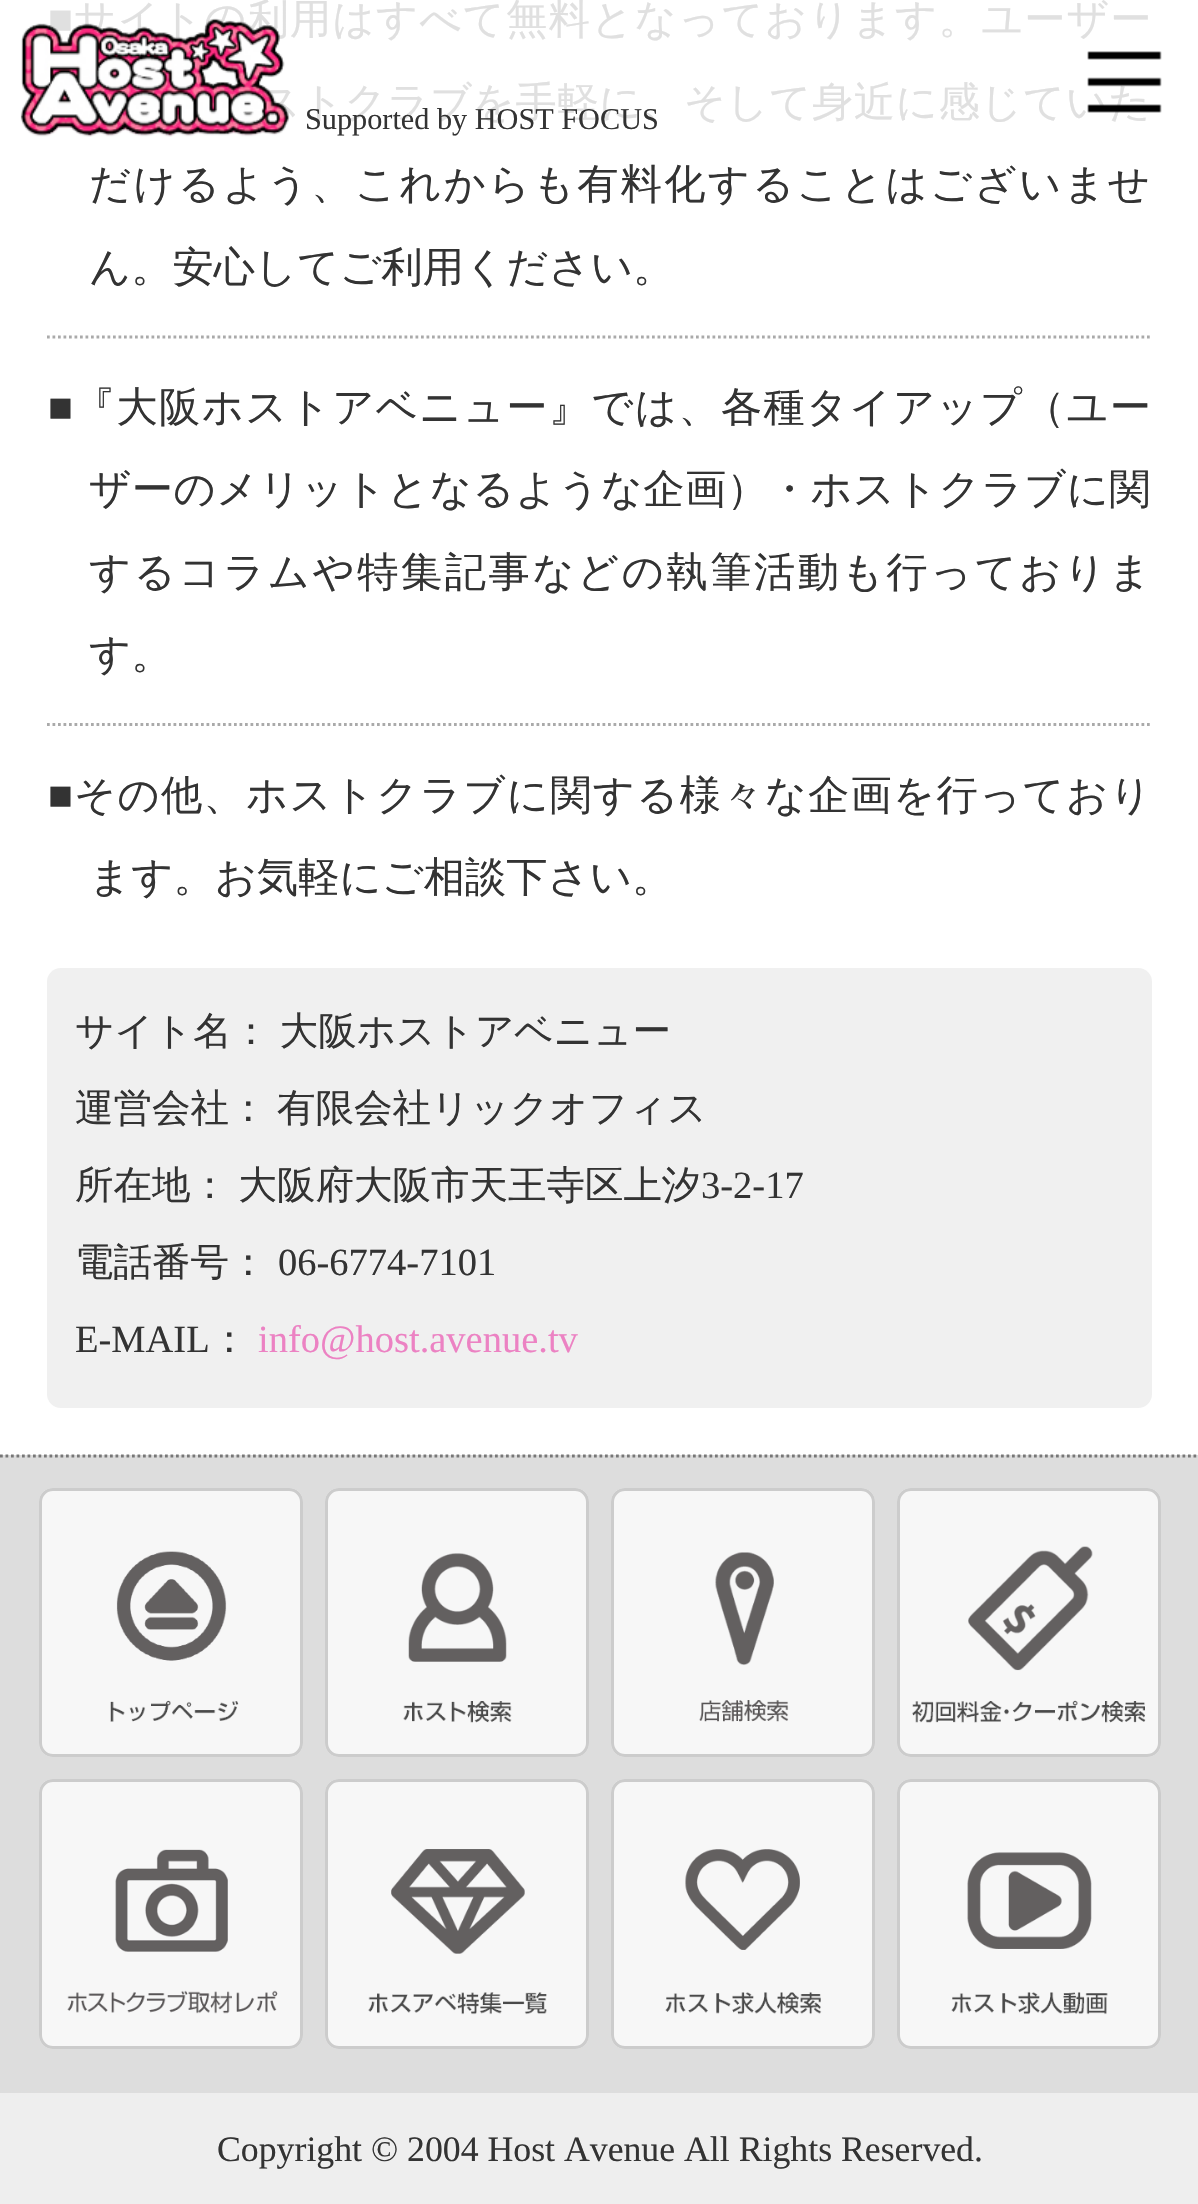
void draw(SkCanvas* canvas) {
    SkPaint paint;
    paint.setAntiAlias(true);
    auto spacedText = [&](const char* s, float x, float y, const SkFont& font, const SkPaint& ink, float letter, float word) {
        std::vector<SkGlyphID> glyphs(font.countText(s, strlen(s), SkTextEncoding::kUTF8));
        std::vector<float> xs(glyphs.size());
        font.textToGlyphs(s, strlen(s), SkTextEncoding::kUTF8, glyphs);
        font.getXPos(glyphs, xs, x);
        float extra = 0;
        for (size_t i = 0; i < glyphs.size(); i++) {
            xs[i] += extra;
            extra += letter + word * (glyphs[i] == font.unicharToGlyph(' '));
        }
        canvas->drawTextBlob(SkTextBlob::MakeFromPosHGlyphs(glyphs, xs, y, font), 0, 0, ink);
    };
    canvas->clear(0xFFFFFFFF);
    SkFont font1(fontMgr->matchFamilyStyle("Liberation Serif", SkFontStyle::Normal()), 41.25f);
    font1.setSubpixel(true);
    paint.setColor(0xFFE0E0E0);
    canvas->drawString("■", 48, 33, font1, paint);
    SkFont font2(fontMgr->matchFamilyStyle("WenQuanYi Zen Hei", SkFontStyle(500, SkFontStyle::kNormal_Width, SkFontStyle::kUpright_Slant)), 41.25f);
    font2.setSubpixel(true);
    spacedText("サイトの利用はすべて無料となっております。ユーザー", 74, 33, font2, paint, 1.2f, 0);
    spacedText("ストクラブを手軽に、そして身近に感じていた", 259, 116, font2, paint, 0.55f, 0);
    paint.setColor(0xFF333333);
    spacedText("だけるよう、これからも有料化することはございませ", 89, 198, font2, paint, 2.25f, 0);
    canvas->drawString("ん。安心してご利用ください。", 89, 281, font2, paint);
    paint.setStyle(SkPaint::kStroke_Style);
    paint.setStrokeWidth(2.8f);
    paint.setColor(0xFFAAAAAA);
    paint.setPathEffect(SkDashPathEffect::Make({{2.75f, 2.75f}}, 0));
    canvas->drawPath(SkPathBuilder().moveTo(47, 337).lineTo(1152, 337).detach(), paint);
    paint.setPathEffect(nullptr);
    paint.setStyle(SkPaint::kFill_Style);
    paint.setColor(0xFF333333);
    canvas->drawString("■", 48, 421, font1, paint);
    spacedText("『大阪ホストアベニュー』では、各種タイアップ（ユー", 74, 421, font2, paint, 1.3f, 0);
    spacedText("ザーのメリットとなるような企画）・ホストクラブに関", 89, 503, font2, paint, 0.5f, 0);
    spacedText("するコラムや特集記事などの執筆活動も行っておりま", 89, 586, font2, paint, 2.5f, 0);
    canvas->drawString("す。", 89, 668, font2, paint);
    paint.setStyle(SkPaint::kStroke_Style);
    paint.setColor(0xFFAAAAAA);
    paint.setPathEffect(SkDashPathEffect::Make({{2.75f, 2.75f}}, 0));
    canvas->drawPath(SkPathBuilder().moveTo(47, 724.5f).lineTo(1152, 724.5f).detach(), paint);
    paint.setPathEffect(nullptr);
    paint.setStyle(SkPaint::kFill_Style);
    paint.setColor(0xFF333333);
    canvas->drawString("■", 48, 809, font1, paint);
    spacedText("その他、ホストクラブに関する様々な企画を行っており", 74, 809, font2, paint, 1.25f, 0);
    canvas->drawString("ます。お気軽にご相談下さい。", 89, 891, font2, paint);
    canvas->drawImageRect(SkImages::DeferredFromEncodedData(SkData::MakeFromFileName("img1.png")), SkRect::MakeXYWH(20, 18, 270, 119), SkSamplingOptions());
    canvas->drawImageRect(SkImages::DeferredFromEncodedData(SkData::MakeFromFileName("img2.png")), SkRect::MakeXYWH(1087, 51, 75, 62), SkSamplingOptions());
    SkFont font3(fontMgr->matchFamilyStyle("Liberation Serif", SkFontStyle::Normal()), 30.25f);
    font3.setSubpixel(true);
    canvas->drawString("Supported by HOST FOCUS", 305, 129, font3, paint);
    paint.setColor(0xFFF0F0F0);
    canvas->drawRoundRect(SkRect::MakeXYWH(47, 968, 1105, 440), 14, 14, paint);
    SkFont font4(fontMgr->matchFamilyStyle("WenQuanYi Zen Hei", SkFontStyle(500, SkFontStyle::kNormal_Width, SkFontStyle::kUpright_Slant)), 38.5f);
    font4.setSubpixel(true);
    paint.setColor(0xFF333333);
    spacedText("サイト名： 大阪ホストアベニュー", 75, 1044, font4, paint, 0, -2);
    spacedText("運営会社： 有限会社リックオフィス", 75, 1121, font4, paint, 0, -2);
    spacedText("所在地： 大阪府大阪市天王寺区上汐", 75, 1198, font4, paint, 0, -2);
    SkFont font5(fontMgr->matchFamilyStyle("Liberation Serif", SkFontStyle::Normal()), 38.5f);
    font5.setSubpixel(true);
    canvas->drawString("3-2-17", 701, 1198, font5, paint);
    canvas->drawString("電話番号：", 75, 1275, font4, paint);
    canvas->drawString("06-6774-7101", 278, 1275, font5, paint);
    canvas->drawString("E-MAIL", 75, 1352, font5, paint);
    canvas->drawString("：", 210, 1352, font4, paint);
    paint.setColor(0xFFEC82C3);
    canvas->drawString("info@host.avenue.tv", 258, 1352, font5, paint);
    paint.setColor(0xFFDDDDDD);
    canvas->drawRect(SkRect::MakeXYWH(0, 1455, 1198, 638), paint);
    paint.setStyle(SkPaint::kStroke_Style);
    paint.setColor(0xFF777777);
    paint.setPathEffect(SkDashPathEffect::Make({{2.75f, 2.75f}}, 0));
    canvas->drawPath(SkPathBuilder().moveTo(0, 1456).lineTo(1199, 1456).detach(), paint);
    paint.setPathEffect(nullptr);
    paint.setStyle(SkPaint::kFill_Style);
    paint.setColor(0xFFF7F7F7);
    canvas->drawRoundRect(SkRect::MakeXYWH(39, 1488, 264, 269), 14, 14, paint);
    canvas->drawImageRect(SkImages::DeferredFromEncodedData(SkData::MakeFromFileName("img3.png")), SkRect::MakeXYWH(110, 1551, 129, 171), SkSamplingOptions());
    paint.setStyle(SkPaint::kStroke_Style);
    paint.setStrokeWidth(3);
    paint.setColor(0xFFCCCCCC);
    canvas->drawRoundRect(SkRect::MakeXYWH(40.5f, 1489.5f, 261, 266), 12.5f, 12.5f, paint);
    paint.setStyle(SkPaint::kFill_Style);
    paint.setColor(0xFFF7F7F7);
    canvas->drawRoundRect(SkRect::MakeXYWH(325, 1488, 264, 269), 14, 14, paint);
    canvas->drawImageRect(SkImages::DeferredFromEncodedData(SkData::MakeFromFileName("img4.png")), SkRect::MakeXYWH(403, 1553, 109, 170), SkSamplingOptions());
    paint.setStyle(SkPaint::kStroke_Style);
    paint.setColor(0xFFCCCCCC);
    canvas->drawRoundRect(SkRect::MakeXYWH(326.5f, 1489.5f, 261, 266), 12.5f, 12.5f, paint);
    paint.setStyle(SkPaint::kFill_Style);
    paint.setColor(0xFFF7F7F7);
    canvas->drawRoundRect(SkRect::MakeXYWH(611, 1488, 264, 269), 14, 14, paint);
    canvas->drawImageRect(SkImages::DeferredFromEncodedData(SkData::MakeFromFileName("img5.png")), SkRect::MakeXYWH(699, 1552, 90, 170), SkSamplingOptions());
    paint.setStyle(SkPaint::kStroke_Style);
    paint.setColor(0xFFCCCCCC);
    canvas->drawRoundRect(SkRect::MakeXYWH(612.5f, 1489.5f, 261, 266), 12.5f, 12.5f, paint);
    paint.setStyle(SkPaint::kFill_Style);
    paint.setColor(0xFFF7F7F7);
    canvas->drawRoundRect(SkRect::MakeXYWH(897, 1488, 264, 269), 14, 14, paint);
    canvas->drawImageRect(SkImages::DeferredFromEncodedData(SkData::MakeFromFileName("img6.png")), SkRect::MakeXYWH(912, 1546, 234, 177), SkSamplingOptions());
    paint.setStyle(SkPaint::kStroke_Style);
    paint.setColor(0xFFCCCCCC);
    canvas->drawRoundRect(SkRect::MakeXYWH(898.5f, 1489.5f, 261, 266), 12.5f, 12.5f, paint);
    paint.setStyle(SkPaint::kFill_Style);
    paint.setColor(0xFFF7F7F7);
    canvas->drawRoundRect(SkRect::MakeXYWH(39, 1779, 264, 270), 14, 14, paint);
    canvas->drawImageRect(SkImages::DeferredFromEncodedData(SkData::MakeFromFileName("img7.png")), SkRect::MakeXYWH(67, 1849, 211, 165), SkSamplingOptions());
    paint.setStyle(SkPaint::kStroke_Style);
    paint.setColor(0xFFCCCCCC);
    canvas->drawRoundRect(SkRect::MakeXYWH(40.5f, 1780.5f, 261, 267), 12.5f, 12.5f, paint);
    paint.setStyle(SkPaint::kFill_Style);
    paint.setColor(0xFFF7F7F7);
    canvas->drawRoundRect(SkRect::MakeXYWH(325, 1779, 264, 270), 14, 14, paint);
    canvas->drawImageRect(SkImages::DeferredFromEncodedData(SkData::MakeFromFileName("img8.png")), SkRect::MakeXYWH(368, 1849, 179, 166), SkSamplingOptions());
    paint.setStyle(SkPaint::kStroke_Style);
    paint.setColor(0xFFCCCCCC);
    canvas->drawRoundRect(SkRect::MakeXYWH(326.5f, 1780.5f, 261, 267), 12.5f, 12.5f, paint);
    paint.setStyle(SkPaint::kFill_Style);
    paint.setColor(0xFFF7F7F7);
    canvas->drawRoundRect(SkRect::MakeXYWH(611, 1779, 264, 270), 14, 14, paint);
    canvas->drawImageRect(SkImages::DeferredFromEncodedData(SkData::MakeFromFileName("img9.png")), SkRect::MakeXYWH(665, 1849, 157, 166), SkSamplingOptions());
    paint.setStyle(SkPaint::kStroke_Style);
    paint.setColor(0xFFCCCCCC);
    canvas->drawRoundRect(SkRect::MakeXYWH(612.5f, 1780.5f, 261, 267), 12.5f, 12.5f, paint);
    paint.setStyle(SkPaint::kFill_Style);
    paint.setColor(0xFFF7F7F7);
    canvas->drawRoundRect(SkRect::MakeXYWH(897, 1779, 264, 270), 14, 14, paint);
    canvas->drawImageRect(SkImages::DeferredFromEncodedData(SkData::MakeFromFileName("img10.png")), SkRect::MakeXYWH(951, 1852, 157, 163), SkSamplingOptions());
    paint.setStyle(SkPaint::kStroke_Style);
    paint.setColor(0xFFCCCCCC);
    canvas->drawRoundRect(SkRect::MakeXYWH(898.5f, 1780.5f, 261, 267), 12.5f, 12.5f, paint);
    paint.setStyle(SkPaint::kFill_Style);
    paint.setColor(0xFFEEEEEE);
    canvas->drawRect(SkRect::MakeXYWH(0, 2093, 1198, 111), paint);
    SkFont font6(fontMgr->matchFamilyStyle("Liberation Serif", SkFontStyle::Normal()), 35.75f);
    font6.setSubpixel(true);
    paint.setColor(0xFF333333);
    canvas->drawString("Copyright © 2004 Host Avenue All Rights Reserved.", 217, 2161, font6, paint);
}
